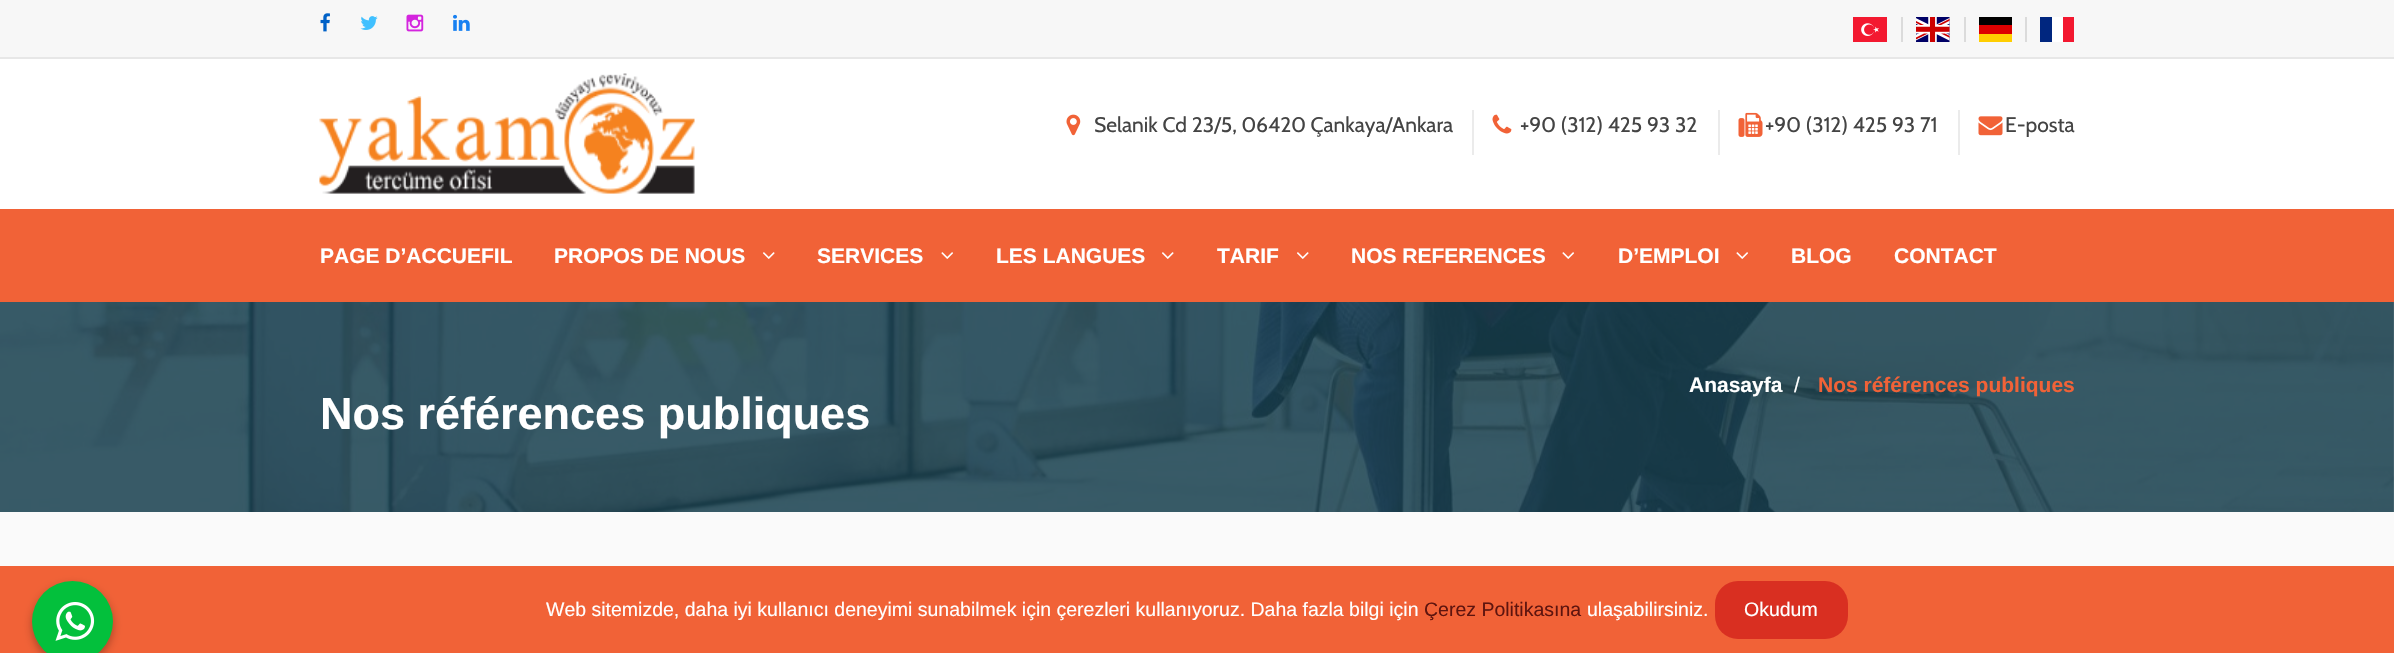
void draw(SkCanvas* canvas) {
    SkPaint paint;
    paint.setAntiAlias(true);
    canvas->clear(0xFFFFFFFF);
    paint.setColor(0xFFF7F7F7);
    canvas->drawRect(SkRect::MakeXYWH(0, 0, 2394, 57), paint);
    paint.setColor(0xFFE7E7E7);
    canvas->drawRect(SkRect::MakeXYWH(0, 57, 2394, 2), paint);
    canvas->drawImageRect(SkImages::DeferredFromEncodedData(SkData::MakeFromFileName("img1.png")), SkRect::MakeXYWH(320, 13, 10, 19), SkSamplingOptions());
    canvas->drawImageRect(SkImages::DeferredFromEncodedData(SkData::MakeFromFileName("img2.png")), SkRect::MakeXYWH(360, 16, 18, 14), SkSamplingOptions());
    canvas->drawImageRect(SkImages::DeferredFromEncodedData(SkData::MakeFromFileName("img3.png")), SkRect::MakeXYWH(406, 14, 18, 18), SkSamplingOptions());
    canvas->drawImageRect(SkImages::DeferredFromEncodedData(SkData::MakeFromFileName("img4.png")), SkRect::MakeXYWH(453, 14, 17, 17), SkSamplingOptions());
    paint.setColor(0xFFDBDBDB);
    canvas->drawRect(SkRect::MakeXYWH(1901, 17, 2, 25), paint);
    canvas->drawImageRect(SkImages::DeferredFromEncodedData(SkData::MakeFromFileName("img5.png")), SkRect::MakeXYWH(1853, 17, 34, 25), SkSamplingOptions());
    canvas->drawRect(SkRect::MakeXYWH(1964, 17, 2, 25), paint);
    canvas->drawImageRect(SkImages::DeferredFromEncodedData(SkData::MakeFromFileName("img6.png")), SkRect::MakeXYWH(1916, 17, 34, 25), SkSamplingOptions());
    canvas->drawRect(SkRect::MakeXYWH(2025, 17, 2, 25), paint);
    paint.setColor(0xFFFFCE00);
    canvas->drawRect(SkRect::MakeXYWH(1979, 34, 33, 8), paint);
    paint.setColor(0xFF000000);
    canvas->drawRect(SkRect::MakeXYWH(1979, 17, 33, 8), paint);
    paint.setColor(0xFFDD0000);
    canvas->drawRect(SkRect::MakeXYWH(1979, 25, 33, 9), paint);
    paint.setColor(0xFFFFFFFF);
    canvas->drawRect(SkRect::MakeXYWH(2052, 17, 11, 25), paint);
    paint.setColor(0xFF00267F);
    canvas->drawRect(SkRect::MakeXYWH(2040, 17, 12, 25), paint);
    paint.setColor(0xFFF31830);
    canvas->drawRect(SkRect::MakeXYWH(2063, 17, 11, 25), paint);
    canvas->drawImageRect(SkImages::DeferredFromEncodedData(SkData::MakeFromFileName("img7.png")), SkRect::MakeXYWH(319, 73, 376, 121), SkSamplingOptions());
    paint.setColor(0xFFEBEBEB);
    canvas->drawRect(SkRect::MakeXYWH(1472, 110, 2, 45), paint);
    canvas->drawImageRect(SkImages::DeferredFromEncodedData(SkData::MakeFromFileName("img8.png")), SkRect::MakeXYWH(1066, 114, 15, 22), SkSamplingOptions());
    SkFont font1(fontMgr->matchFamilyStyle("Cabin", SkFontStyle::Normal()), 21);
    font1.setSubpixel(true);
    paint.setColor(0xFF444444);
    canvas->drawString("Selanik Cd 23/5, 06420 Çankaya/Ankara", 1094, 132, font1, paint);
    paint.setColor(0xFFEBEBEB);
    canvas->drawRect(SkRect::MakeXYWH(1718, 110, 2, 45), paint);
    canvas->drawImageRect(SkImages::DeferredFromEncodedData(SkData::MakeFromFileName("img9.png")), SkRect::MakeXYWH(1492, 114, 20, 20), SkSamplingOptions());
    paint.setColor(0xFF444444);
    canvas->drawString("+90 (312) 425 93 32", 1520, 132, font1, paint);
    paint.setColor(0xFFEBEBEB);
    canvas->drawRect(SkRect::MakeXYWH(1958, 110, 2, 45), paint);
    canvas->drawImageRect(SkImages::DeferredFromEncodedData(SkData::MakeFromFileName("img10.png")), SkRect::MakeXYWH(1738, 112, 25, 25), SkSamplingOptions());
    paint.setColor(0xFF444444);
    canvas->drawString("+90 (312) 425 93 71", 1765, 132, font1, paint);
    canvas->drawImageRect(SkImages::DeferredFromEncodedData(SkData::MakeFromFileName("img11.png")), SkRect::MakeXYWH(1978, 116, 25, 20), SkSamplingOptions());
    canvas->drawString("E-posta", 2005, 132, font1, paint);
    paint.setColor(0xFFF16237);
    canvas->drawRect(SkRect::MakeXYWH(0, 209, 2394, 93), paint);
    SkFont font2(fontMgr->matchFamilyStyle("Liberation Sans", SkFontStyle::Bold()), 21);
    font2.setSubpixel(true);
    paint.setColor(0xFFFFFFFF);
    canvas->drawString("PAGE D’ACCUEFIL", 320, 263, font2, paint);
    canvas->drawString("PROPOS DE NOUS", 554, 263, font2, paint);
    canvas->drawImageRect(SkImages::DeferredFromEncodedData(SkData::MakeFromFileName("img12.png")), SkRect::MakeXYWH(763, 252, 12, 7), SkSamplingOptions());
    canvas->drawString("SERVICES", 817, 263, font2, paint);
    canvas->drawImageRect(SkImages::DeferredFromEncodedData(SkData::MakeFromFileName("img13.png")), SkRect::MakeXYWH(941, 252, 12, 7), SkSamplingOptions());
    canvas->drawString("LES LANGUES", 996, 263, font2, paint);
    canvas->drawImageRect(SkImages::DeferredFromEncodedData(SkData::MakeFromFileName("img12.png")), SkRect::MakeXYWH(1162, 252, 12, 7), SkSamplingOptions());
    canvas->drawString("TARIF", 1217, 263, font2, paint);
    canvas->drawImageRect(SkImages::DeferredFromEncodedData(SkData::MakeFromFileName("img12.png")), SkRect::MakeXYWH(1297, 252, 12, 7), SkSamplingOptions());
    canvas->drawString("NOS REFERENCES", 1351, 263, font2, paint);
    canvas->drawImageRect(SkImages::DeferredFromEncodedData(SkData::MakeFromFileName("img13.png")), SkRect::MakeXYWH(1562, 252, 12, 7), SkSamplingOptions());
    canvas->drawString("D’EMPLOI", 1618, 263, font2, paint);
    canvas->drawImageRect(SkImages::DeferredFromEncodedData(SkData::MakeFromFileName("img13.png")), SkRect::MakeXYWH(1736, 252, 12, 7), SkSamplingOptions());
    canvas->drawString("BLOG", 1791, 263, font2, paint);
    canvas->drawString("CONTACT", 1894, 263, font2, paint);
    canvas->drawImageRect(SkImages::DeferredFromEncodedData(SkData::MakeFromFileName("img14.png")), SkRect::MakeXYWH(0, 302, 2394, 210), SkSamplingOptions());
    canvas->drawString("Anasayfa", 1689, 392, font2, paint);
    SkFont font3(fontMgr->matchFamilyStyle("Liberation Sans", SkFontStyle::Normal()), 21);
    font3.setSubpixel(true);
    canvas->drawString("/", 1794, 392, font3, paint);
    paint.setColor(0xFFF16237);
    canvas->drawString("Nos références publiques", 1818, 392, font2, paint);
    SkFont font4(fontMgr->matchFamilyStyle("Liberation Sans", SkFontStyle::Bold()), 45);
    font4.setSubpixel(true);
    paint.setColor(0xFFFFFFFF);
    canvas->drawString("Nos références publiques", 320, 429, font4, paint);
    paint.setColor(0xFFFAFAFA);
    canvas->drawRect(SkRect::MakeXYWH(0, 512, 2394, 54), paint);
    paint.setColor(0xFFF16237);
    canvas->drawRect(SkRect::MakeXYWH(0, 566, 2394, 87), paint);
    paint.setColor(0x4D000000);
    paint.setMaskFilter(SkMaskFilter::MakeBlur(kNormal_SkBlurStyle, 4.5f));
    canvas->drawRoundRect(SkRect::MakeXYWH(32, 585, 81, 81), 40.5f, 40.5f, paint);
    paint.setMaskFilter(nullptr);
    paint.setColor(0xFF03C03C);
    canvas->drawCircle(72.5f, 621.5f, 40.5f, paint);
    canvas->drawImageRect(SkImages::DeferredFromEncodedData(SkData::MakeFromFileName("img15.png")), SkRect::MakeXYWH(55, 602, 40, 39), SkSamplingOptions());
    SkFont font5(fontMgr->matchFamilyStyle("Liberation Sans", SkFontStyle::Normal()), 19.5f);
    font5.setSubpixel(true);
    paint.setColor(0xFFFFFFFF);
    canvas->drawString("Web sitemizde, daha iyi kullanıcı deneyimi sunabilmek için çerezleri kullanıyoruz. Daha fazla bilgi için", 546, 616, font5, paint);
    paint.setColor(0xFF5E140E);
    canvas->drawString("Çerez Politikasına", 1424, 616, font5, paint);
    paint.setColor(0xFFFFFFFF);
    canvas->drawString("ulaşabilirsiniz.", 1587, 616, font5, paint);
    paint.setColor(0xFFD92F21);
    canvas->drawRoundRect(SkRect::MakeXYWH(1715, 581, 133, 58), 23, 23, paint);
    paint.setColor(0xFFFFFFFF);
    canvas->drawString("Okudum", 1744, 616, font5, paint);
}
